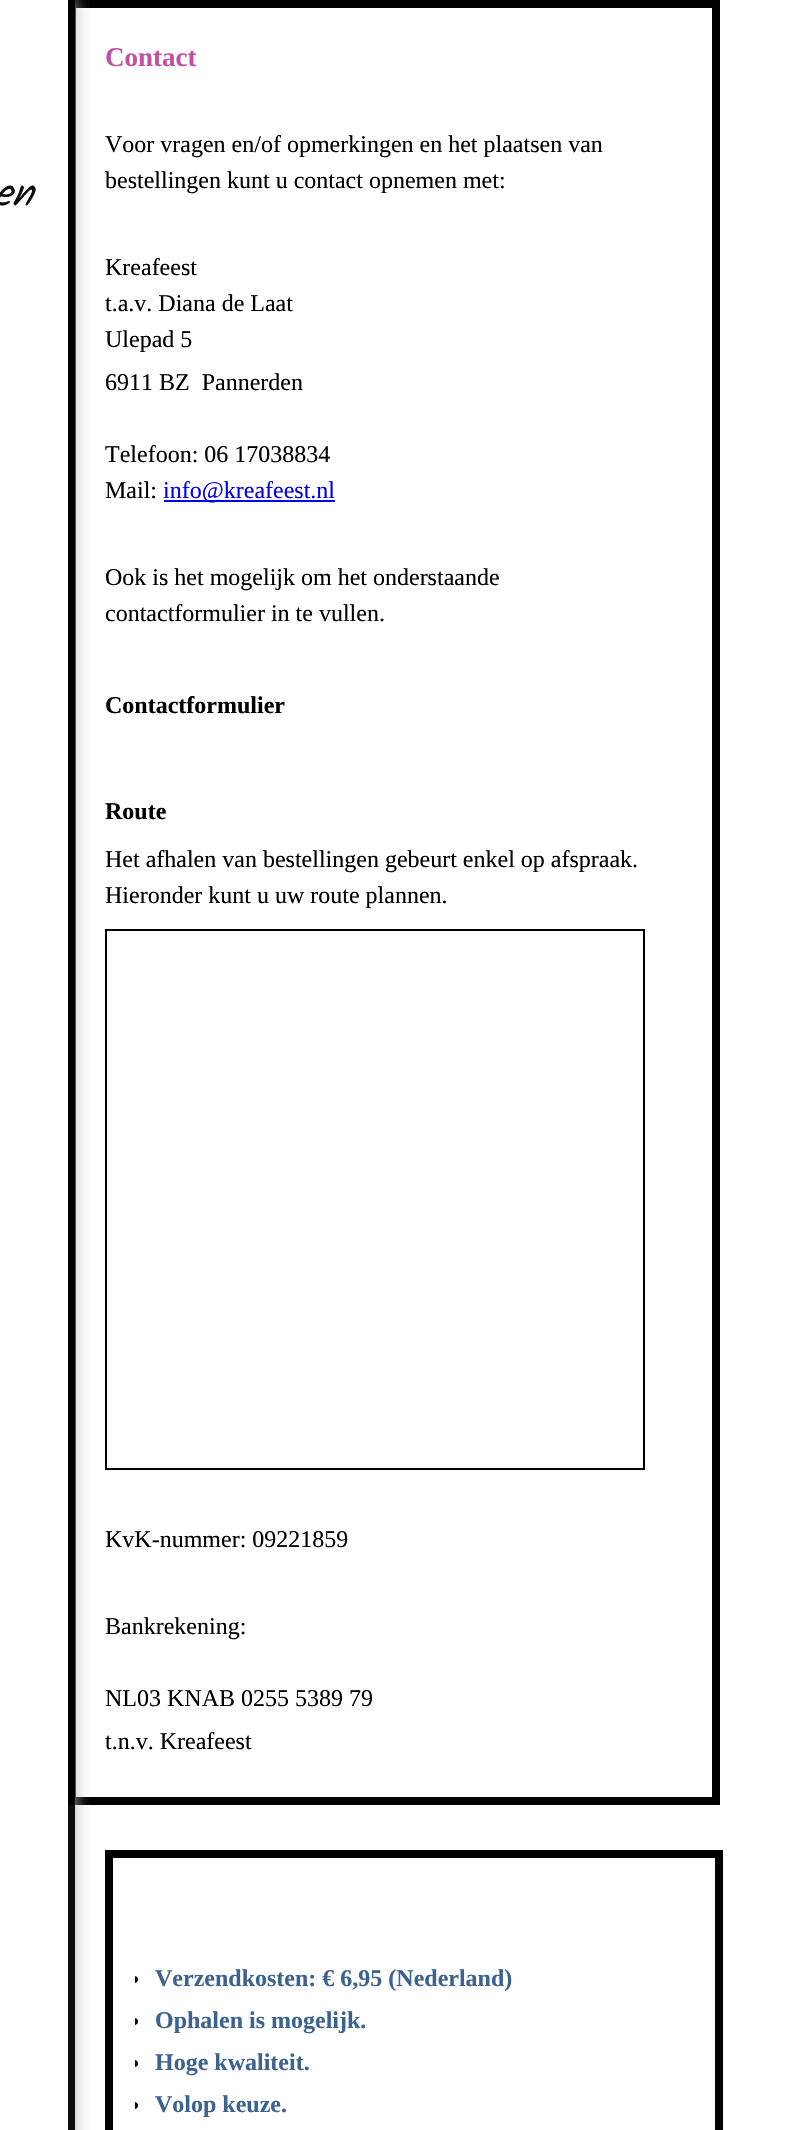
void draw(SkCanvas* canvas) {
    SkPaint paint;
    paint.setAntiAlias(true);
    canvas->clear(0xFFFFFFFF);
    paint.setStyle(SkPaint::kStroke_Style);
    paint.setStrokeWidth(8);
    paint.setColor(0xFF000000);
    canvas->drawRect(SkRect::MakeXYWH(72, 4, 644, 1797), paint);
    canvas->save();
    canvas->clipRect(SkRect::MakeXYWH(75, 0, 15, 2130));
    paint.setStyle(SkPaint::kFill_Style);
    paint.setColor(0xF2B5B5B5);
    paint.setMaskFilter(SkMaskFilter::MakeBlur(kNormal_SkBlurStyle, 7.5f));
    canvas->drawRect(SkRect::MakeXYWH(-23, 0, 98, 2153), paint);
    paint.setMaskFilter(nullptr);
    canvas->restore();
    paint.setColor(0xF2000000);
    canvas->drawRect(SkRect::MakeXYWH(68, 1805, 7, 325), paint);
    SkFont font1(fontMgr->matchFamilyStyle("Kalam", SkFontStyle::Italic()), 40);
    font1.setSubpixel(true);
    paint.setColor(0xFF0D0D0D);
    canvas->drawString("en", -6, 206, font1, paint);
    SkFont font2(fontMgr->matchFamilyStyle("Liberation Serif", SkFontStyle::Bold()), 27);
    font2.setSubpixel(true);
    paint.setColor(0xFFC351A3);
    canvas->drawString("Contact", 105, 66, font2, paint);
    SkFont font3(fontMgr->matchFamilyStyle("Liberation Serif", SkFontStyle::Normal()), 24);
    font3.setSubpixel(true);
    paint.setColor(0xFF000000);
    canvas->drawString("Voor vragen en/of opmerkingen en het plaatsen van", 105, 152, font3, paint);
    canvas->drawString("bestellingen kunt u contact opnemen met:", 105, 188, font3, paint);
    canvas->drawString("Kreafeest", 105, 275, font3, paint);
    canvas->drawString("t.a.v. Diana de Laat", 105, 311, font3, paint);
    canvas->drawString("Ulepad 5", 105, 347, font3, paint);
    canvas->drawString("6911 BZ  Pannerden", 105, 390, font3, paint);
    canvas->drawString("Telefoon: 06 17038834", 105, 462, font3, paint);
    canvas->drawString("Mail:", 105, 498, font3, paint);
    paint.setColor(0xFF0000EE);
    canvas->drawRect(SkRect::MakeXYWH(164, 500, 171, 2), paint);
    canvas->drawString("info@kreafeest.nl", 163, 498, font3, paint);
    paint.setColor(0xFF000000);
    canvas->drawString("Ook is het mogelijk om het onderstaande", 105, 585, font3, paint);
    canvas->drawString("contactformulier in te vullen.", 105, 621, font3, paint);
    SkFont font4(fontMgr->matchFamilyStyle("Liberation Serif", SkFontStyle::Bold()), 24);
    font4.setSubpixel(true);
    canvas->drawString("Contactformulier", 105, 713, font4, paint);
    canvas->drawString("Route", 105, 819, font4, paint);
    canvas->drawString("Het afhalen van bestellingen gebeurt enkel op afspraak.", 105, 867, font3, paint);
    canvas->drawString("Hieronder kunt u uw route plannen.", 105, 903, font3, paint);
    paint.setStyle(SkPaint::kStroke_Style);
    paint.setStrokeWidth(2);
    canvas->drawRect(SkRect::MakeXYWH(106, 930, 538, 539), paint);
    paint.setStyle(SkPaint::kFill_Style);
    canvas->drawString("KvK-nummer: 09221859", 105, 1547, font3, paint);
    canvas->drawString("Bankrekening:", 105, 1634, font3, paint);
    canvas->drawString("NL03 KNAB 0255 5389 79", 105, 1706, font3, paint);
    canvas->drawString("t.n.v. Kreafeest", 105, 1749, font3, paint);
    paint.setStyle(SkPaint::kStroke_Style);
    paint.setStrokeWidth(8);
    canvas->drawRect(SkRect::MakeXYWH(109, 1854, 610, 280), paint);
    paint.setStyle(SkPaint::kFill_Style);
    canvas->drawPath(SkPathBuilder().moveTo(135, 1976).lineTo(134.5f, 1976).cubicTo(136.5f, 1976, 138, 1977.5f, 138, 1979.5f).cubicTo(138, 1981.5f, 136.5f, 1983, 134.5f, 1983).lineTo(135, 1983).close().detach(), paint);
    paint.setColor(0xFF3C6290);
    canvas->drawString("Verzendkosten: € 6,95 (Nederland)", 155, 1986, font4, paint);
    paint.setColor(0xFF000000);
    canvas->drawPath(SkPathBuilder().moveTo(135, 2018).lineTo(134.5f, 2018).cubicTo(136.5f, 2018, 138, 2019.5f, 138, 2021.5f).cubicTo(138, 2023.5f, 136.5f, 2025, 134.5f, 2025).lineTo(135, 2025).close().detach(), paint);
    paint.setColor(0xFF3C6290);
    canvas->drawString("Ophalen is mogelijk.", 155, 2028, font4, paint);
    paint.setColor(0xFF000000);
    canvas->drawPath(SkPathBuilder().moveTo(135, 2060).lineTo(134.5f, 2060).cubicTo(136.5f, 2060, 138, 2061.5f, 138, 2063.5f).cubicTo(138, 2065.5f, 136.5f, 2067, 134.5f, 2067).lineTo(135, 2067).close().detach(), paint);
    paint.setColor(0xFF3C6290);
    canvas->drawString("Hoge kwaliteit.", 155, 2070, font4, paint);
    paint.setColor(0xFF000000);
    canvas->drawPath(SkPathBuilder().moveTo(135, 2102).lineTo(134.5f, 2102).cubicTo(136.5f, 2102, 138, 2103.5f, 138, 2105.5f).cubicTo(138, 2107.5f, 136.5f, 2109, 134.5f, 2109).lineTo(135, 2109).close().detach(), paint);
    paint.setColor(0xFF3C6290);
    canvas->drawString("Volop keuze.", 155, 2112, font4, paint);
}
